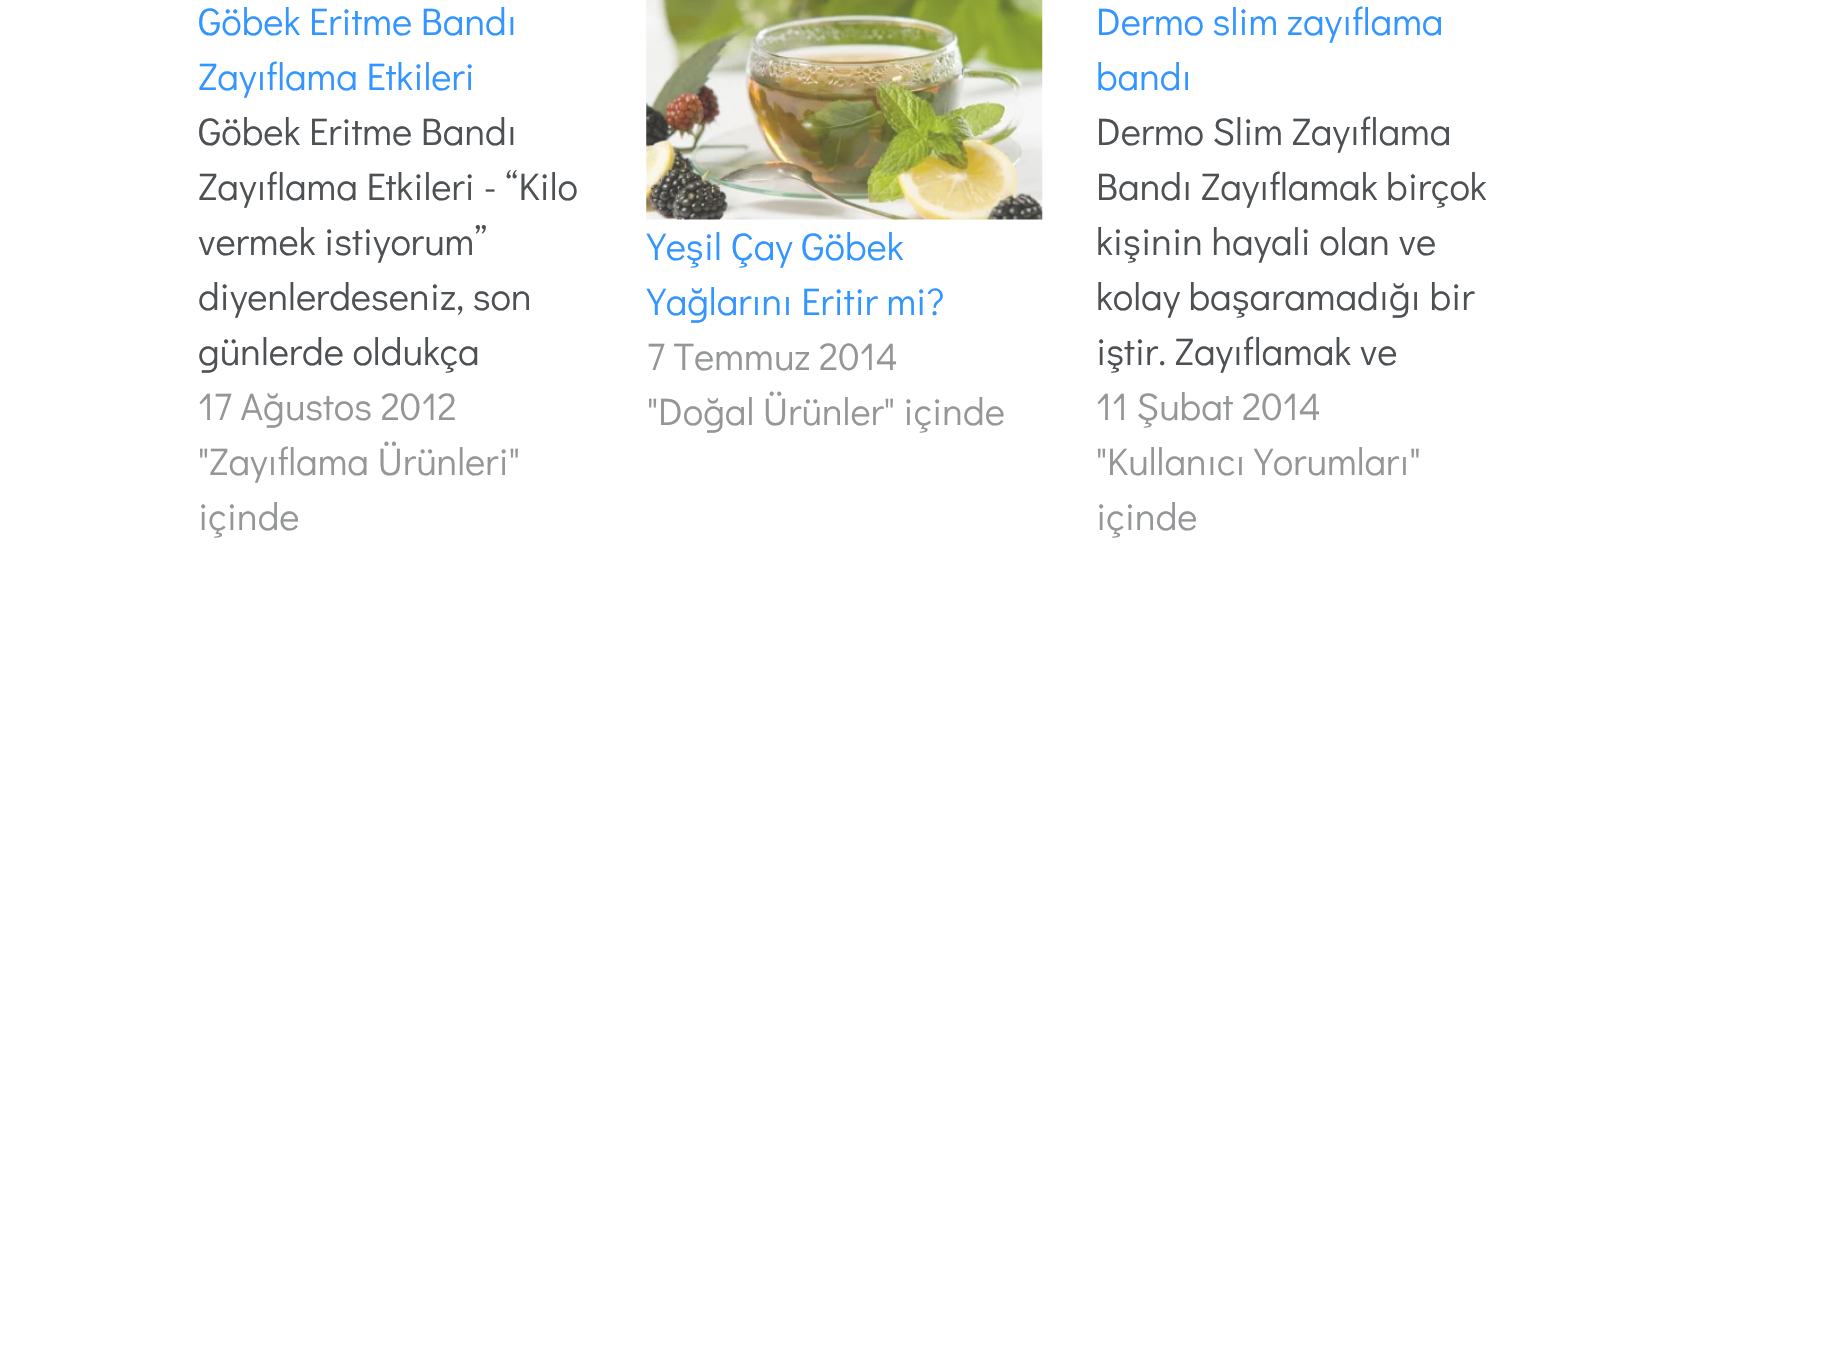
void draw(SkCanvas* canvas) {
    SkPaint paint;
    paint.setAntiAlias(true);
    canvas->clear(0xFFFFFFFF);
    SkFont font1(fontMgr->matchFamilyStyle("Didact Gothic", SkFontStyle::Normal()), 38.5f);
    font1.setSubpixel(true);
    paint.setColor(0xFF3395FF);
    canvas->drawString("Göbek Eritme Bandı", 198, 35, font1, paint);
    canvas->drawString("Zayıflama Etkileri", 198, 90, font1, paint);
    paint.setColor(0xFF4D5154);
    canvas->drawString("Göbek Eritme Bandı", 198, 145, font1, paint);
    canvas->drawString("Zayıflama Etkileri - “Kilo", 198, 200, font1, paint);
    canvas->drawString("vermek istiyorum”", 198, 255, font1, paint);
    canvas->drawString("diyenlerdeseniz, son", 198, 310, font1, paint);
    canvas->drawString("günlerde oldukça", 198, 365, font1, paint);
    paint.setColor(0xFF949698);
    canvas->drawString("17 Ağustos 2012", 198, 420, font1, paint);
    canvas->drawString("\"Zayıflama Ürünleri\"", 198, 475, font1, paint);
    canvas->drawString("içinde", 198, 530, font1, paint);
    canvas->drawImageRect(SkImages::DeferredFromEncodedData(SkData::MakeFromFileName("img1.png")), SkRect::MakeXYWH(646, 0, 397, 220), SkSamplingOptions());
    paint.setColor(0xFF3395FF);
    canvas->drawString("Yeşil Çay Göbek", 647, 260, font1, paint);
    canvas->drawString("Yağlarını Eritir mi?", 647, 315, font1, paint);
    paint.setColor(0xFF949698);
    canvas->drawString("7 Temmuz 2014", 647, 370, font1, paint);
    canvas->drawString("\"Doğal Ürünler\" içinde", 647, 425, font1, paint);
    paint.setColor(0xFF3395FF);
    canvas->drawString("Dermo slim zayıflama", 1096, 35, font1, paint);
    canvas->drawString("bandı", 1096, 90, font1, paint);
    paint.setColor(0xFF4D5154);
    canvas->drawString("Dermo Slim Zayıflama", 1096, 145, font1, paint);
    canvas->drawString("Bandı Zayıflamak birçok", 1096, 200, font1, paint);
    canvas->drawString("kişinin hayali olan ve", 1096, 255, font1, paint);
    canvas->drawString("kolay başaramadığı bir", 1096, 310, font1, paint);
    canvas->drawString("iştir. Zayıflamak ve", 1096, 365, font1, paint);
    paint.setColor(0xFF949698);
    canvas->drawString("11 Şubat 2014", 1096, 420, font1, paint);
    canvas->drawString("\"Kullanıcı Yorumları\"", 1096, 475, font1, paint);
    canvas->drawString("içinde", 1096, 530, font1, paint);
}
